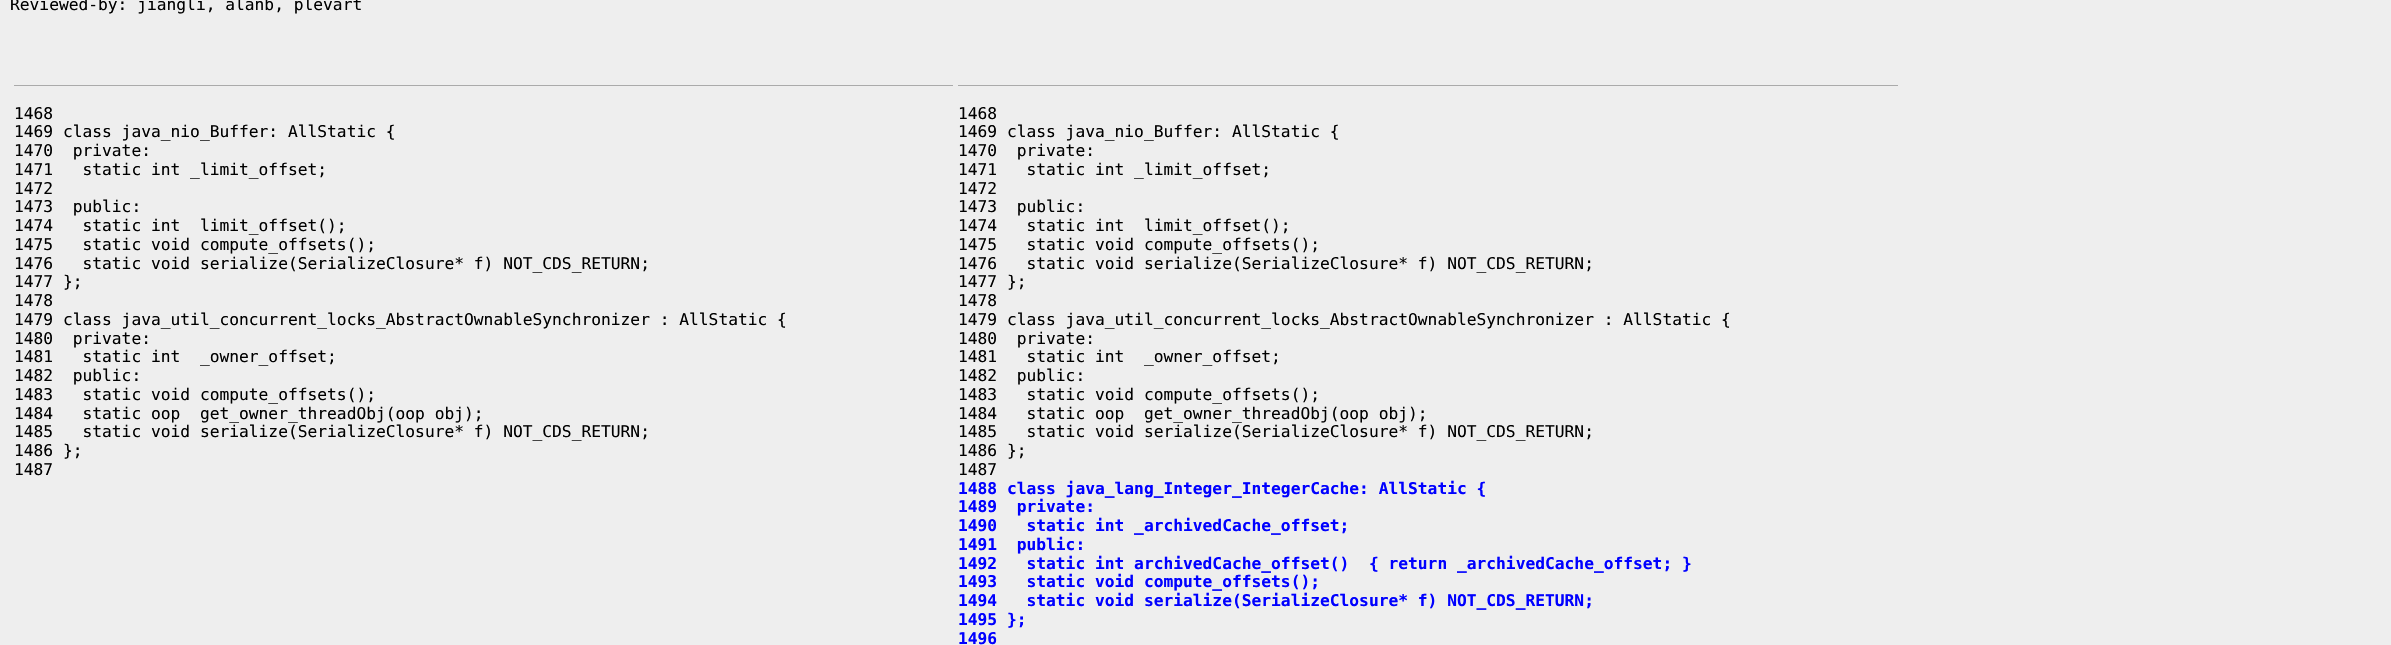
void draw(SkCanvas* canvas) {
    SkPaint paint;
    paint.setAntiAlias(true);
    canvas->clear(0xFFEEEEEE);
    SkFont font1(fontMgr->matchFamilyStyle("DejaVu Sans Mono", SkFontStyle::Normal()), 16.25f);
    font1.setSubpixel(true);
    paint.setColor(0xFF000000);
    canvas->drawString("Reviewed-by: jiangli, alanb, plevart", 10, 10, font1, paint);
    paint.setColor(0xFFAAAAAA);
    canvas->drawRect(SkRect::MakeXYWH(14, 85, 939, 1), paint);
    paint.setColor(0xFF000000);
    canvas->drawString("1468", 14, 119, font1, paint);
    canvas->drawString("1469 class java_nio_Buffer: AllStatic {", 14, 137, font1, paint);
    canvas->drawString("1470  private:", 14, 156, font1, paint);
    canvas->drawString("1471   static int _limit_offset;", 14, 175, font1, paint);
    canvas->drawString("1472", 14, 194, font1, paint);
    canvas->drawString("1473  public:", 14, 212, font1, paint);
    canvas->drawString("1474   static int  limit_offset();", 14, 231, font1, paint);
    canvas->drawString("1475   static void compute_offsets();", 14, 250, font1, paint);
    canvas->drawString("1476   static void serialize(SerializeClosure* f) NOT_CDS_RETURN;", 14, 269, font1, paint);
    canvas->drawString("1477 };", 14, 287, font1, paint);
    canvas->drawString("1478", 14, 306, font1, paint);
    canvas->drawString("1479 class java_util_concurrent_locks_AbstractOwnableSynchronizer : AllStatic {", 14, 325, font1, paint);
    canvas->drawString("1480  private:", 14, 344, font1, paint);
    canvas->drawString("1481   static int  _owner_offset;", 14, 362, font1, paint);
    canvas->drawString("1482  public:", 14, 381, font1, paint);
    canvas->drawString("1483   static void compute_offsets();", 14, 400, font1, paint);
    canvas->drawString("1484   static oop  get_owner_threadObj(oop obj);", 14, 419, font1, paint);
    canvas->drawString("1485   static void serialize(SerializeClosure* f) NOT_CDS_RETURN;", 14, 437, font1, paint);
    canvas->drawString("1486 };", 14, 456, font1, paint);
    canvas->drawString("1487", 14, 475, font1, paint);
    paint.setColor(0xFFAAAAAA);
    canvas->drawRect(SkRect::MakeXYWH(958, 85, 940, 1), paint);
    paint.setColor(0xFF000000);
    canvas->drawString("1468", 958, 119, font1, paint);
    canvas->drawString("1469 class java_nio_Buffer: AllStatic {", 958, 137, font1, paint);
    canvas->drawString("1470  private:", 958, 156, font1, paint);
    canvas->drawString("1471   static int _limit_offset;", 958, 175, font1, paint);
    canvas->drawString("1472", 958, 194, font1, paint);
    canvas->drawString("1473  public:", 958, 212, font1, paint);
    canvas->drawString("1474   static int  limit_offset();", 958, 231, font1, paint);
    canvas->drawString("1475   static void compute_offsets();", 958, 250, font1, paint);
    canvas->drawString("1476   static void serialize(SerializeClosure* f) NOT_CDS_RETURN;", 958, 269, font1, paint);
    canvas->drawString("1477 };", 958, 287, font1, paint);
    canvas->drawString("1478", 958, 306, font1, paint);
    canvas->drawString("1479 class java_util_concurrent_locks_AbstractOwnableSynchronizer : AllStatic {", 958, 325, font1, paint);
    canvas->drawString("1480  private:", 958, 344, font1, paint);
    canvas->drawString("1481   static int  _owner_offset;", 958, 362, font1, paint);
    canvas->drawString("1482  public:", 958, 381, font1, paint);
    canvas->drawString("1483   static void compute_offsets();", 958, 400, font1, paint);
    canvas->drawString("1484   static oop  get_owner_threadObj(oop obj);", 958, 419, font1, paint);
    canvas->drawString("1485   static void serialize(SerializeClosure* f) NOT_CDS_RETURN;", 958, 437, font1, paint);
    canvas->drawString("1486 };", 958, 456, font1, paint);
    canvas->drawString("1487", 958, 475, font1, paint);
    SkFont font2(fontMgr->matchFamilyStyle("DejaVu Sans Mono", SkFontStyle::Bold()), 16.25f);
    font2.setSubpixel(true);
    paint.setColor(0xFF0000FF);
    canvas->drawString("1488 class java_lang_Integer_IntegerCache: AllStatic {", 958, 494, font2, paint);
    canvas->drawString("1489  private:", 958, 512, font2, paint);
    canvas->drawString("1490   static int _archivedCache_offset;", 958, 531, font2, paint);
    canvas->drawString("1491  public:", 958, 550, font2, paint);
    canvas->drawString("1492   static int archivedCache_offset()  { return _archivedCache_offset; }", 958, 569, font2, paint);
    canvas->drawString("1493   static void compute_offsets();", 958, 587, font2, paint);
    canvas->drawString("1494   static void serialize(SerializeClosure* f) NOT_CDS_RETURN;", 958, 606, font2, paint);
    canvas->drawString("1495 };", 958, 625, font2, paint);
    canvas->drawString("1496", 958, 644, font2, paint);
}
